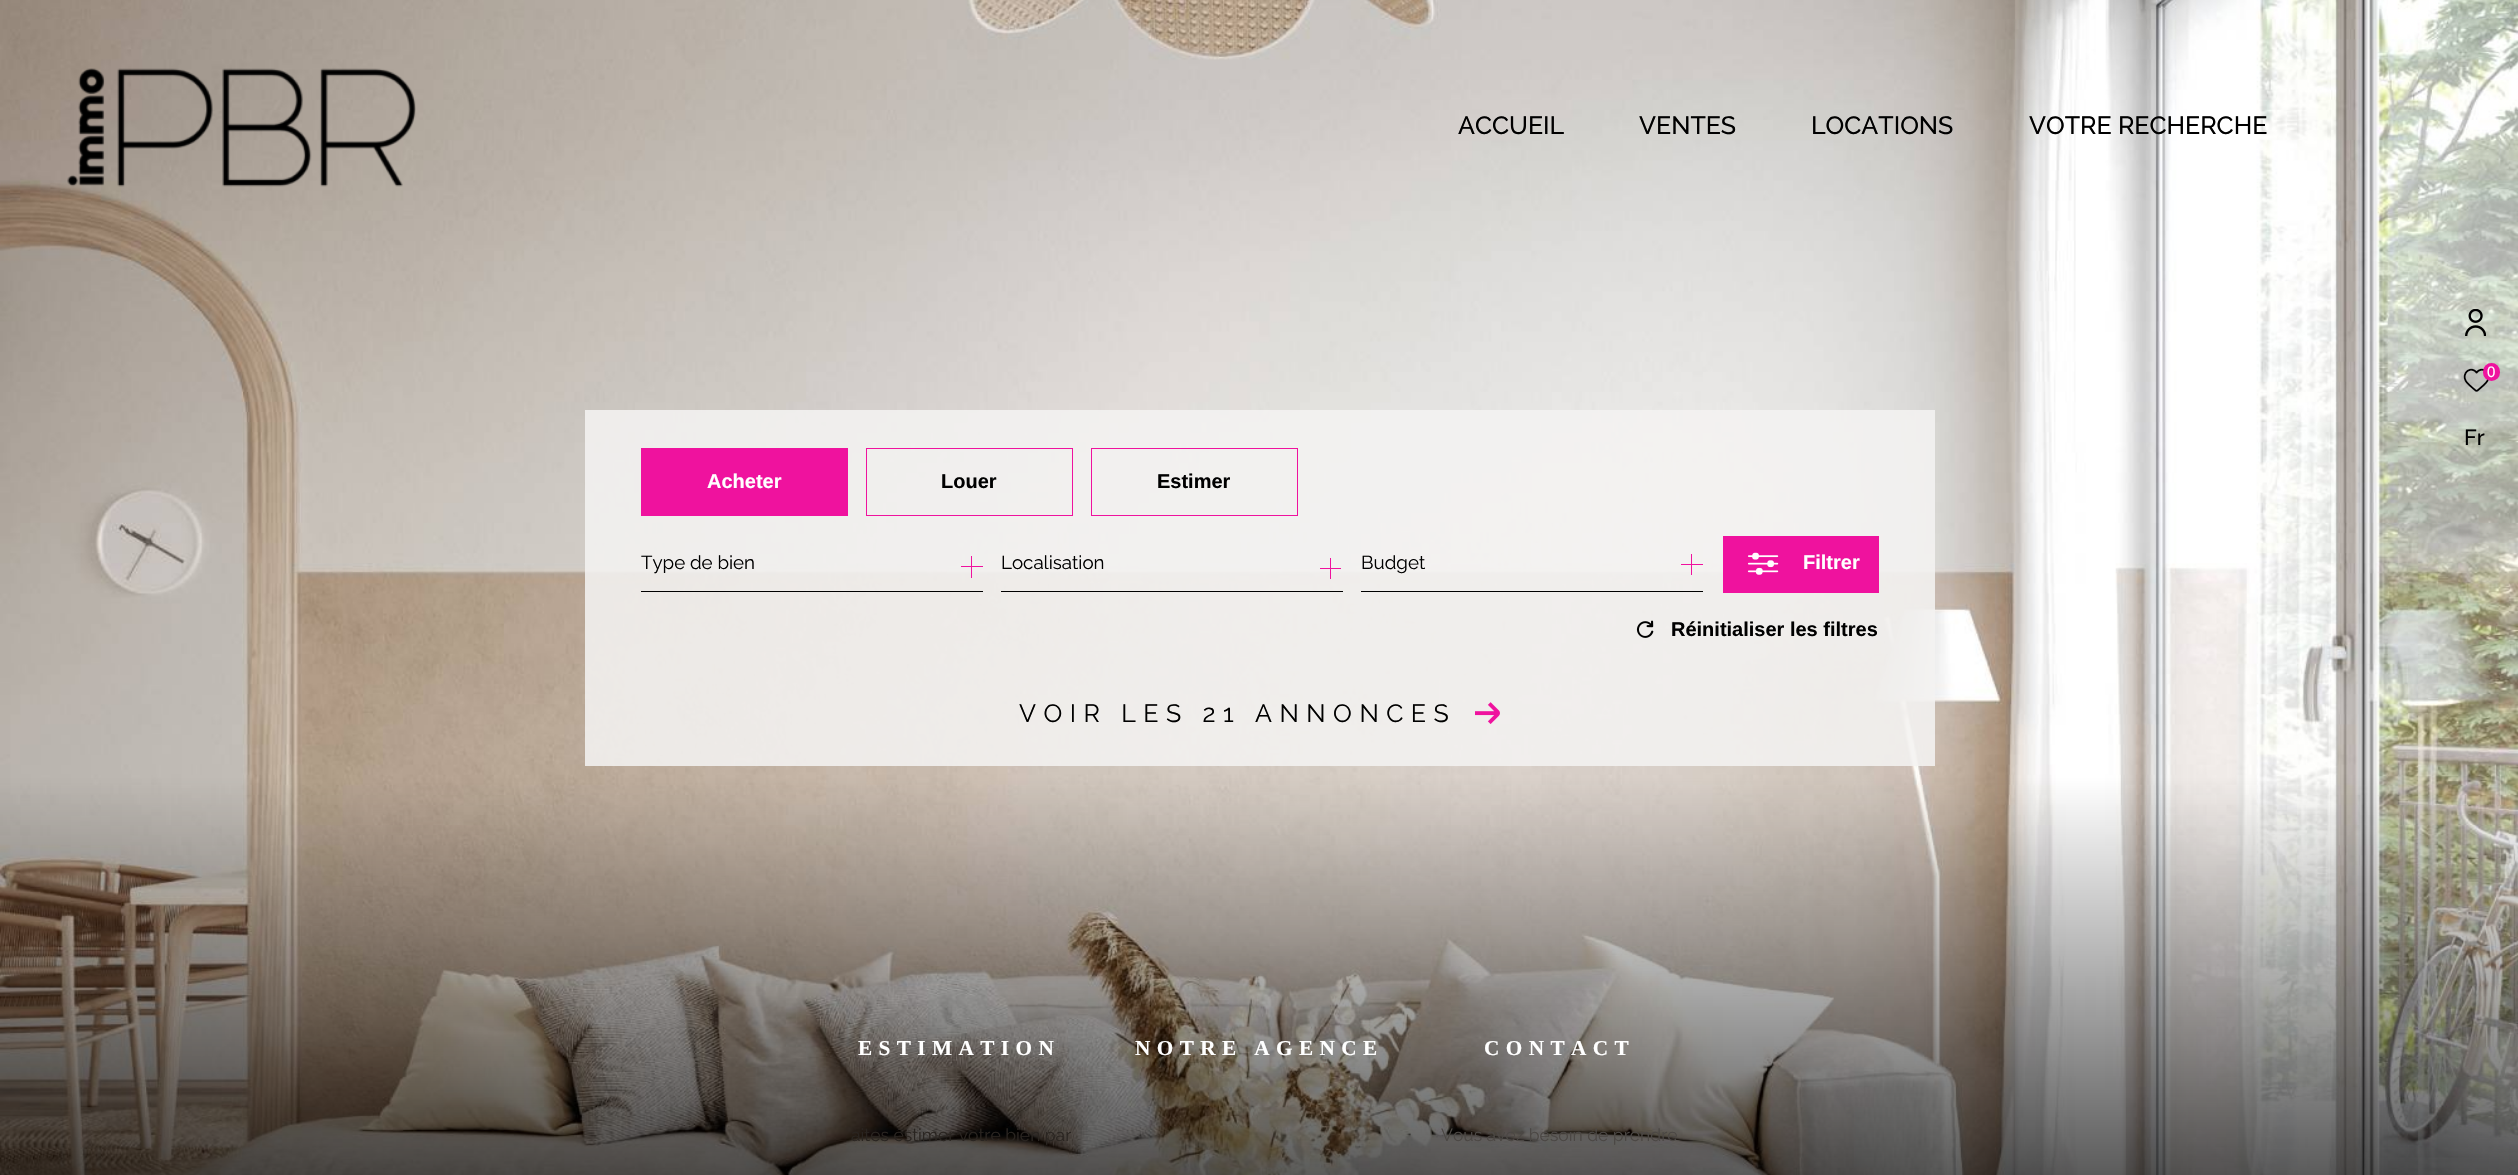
void draw(SkCanvas* canvas) {
    SkPaint paint;
    paint.setAntiAlias(true);
    auto spacedText = [&](const char* s, float x, float y, const SkFont& font, const SkPaint& ink, float letter, float word) {
        std::vector<SkGlyphID> glyphs(font.countText(s, strlen(s), SkTextEncoding::kUTF8));
        std::vector<float> xs(glyphs.size());
        font.textToGlyphs(s, strlen(s), SkTextEncoding::kUTF8, glyphs);
        font.getXPos(glyphs, xs, x);
        float extra = 0;
        for (size_t i = 0; i < glyphs.size(); i++) {
            xs[i] += extra;
            extra += letter + word * (glyphs[i] == font.unicharToGlyph(' '));
        }
        canvas->drawTextBlob(SkTextBlob::MakeFromPosHGlyphs(glyphs, xs, y, font), 0, 0, ink);
    };
    canvas->clear(0xFFFFFFFF);
    canvas->drawImageRect(SkImages::DeferredFromEncodedData(SkData::MakeFromFileName("img1.png")), SkRect::MakeXYWH(0, 0, 2518, 1175), SkSamplingOptions());
    canvas->drawImageRect(SkImages::DeferredFromEncodedData(SkData::MakeFromFileName("img2.png")), SkRect::MakeXYWH(67, 68, 349, 119), SkSamplingOptions());
    SkFont font1(fontMgr->matchFamilyStyle("Raleway", SkFontStyle(500, SkFontStyle::kNormal_Width, SkFontStyle::kUpright_Slant)), 25);
    font1.setSubpixel(true);
    paint.setColor(0xFF000000);
    canvas->drawString("ACCUEIL", 1458, 134, font1, paint);
    canvas->drawString("VENTES", 1639, 134, font1, paint);
    canvas->drawString("LOCATIONS", 1811, 134, font1, paint);
    canvas->drawString("VOTRE RECHERCHE", 2029, 134, font1, paint);
    SkFont font2(fontMgr->matchFamilyStyle("Liberation Serif", SkFontStyle::Bold()), 21.25f);
    font2.setSubpixel(true);
    paint.setColor(0xFFFFFFFF);
    spacedText("ESTIMATION", 858, 1055, font2, paint, 6.4f, 0);
    SkFont font3(fontMgr->matchFamilyStyle("Raleway", SkFontStyle::Normal()), 17.5f);
    font3.setSubpixel(true);
    paint.setColor(0xFF292420);
    canvas->drawString("aites estimer votre bien par", 851, 1141, font3, paint);
    paint.setColor(0xFFFFFFFF);
    spacedText("NOTRE AGENCE", 1135, 1055, font2, paint, 6.4f, 0);
    spacedText("CONTACT", 1484, 1055, font2, paint, 6.4f, 0);
    paint.setColor(0xFF4B4744);
    canvas->drawString("Vous avez besoin de prendre", 1441, 1141, font3, paint);
    canvas->drawImageRect(SkImages::DeferredFromEncodedData(SkData::MakeFromFileName("img3.png")), SkRect::MakeXYWH(2465, 309, 21, 27), SkSamplingOptions());
    canvas->drawImageRect(SkImages::DeferredFromEncodedData(SkData::MakeFromFileName("img4.png")), SkRect::MakeXYWH(2463, 368, 26, 24), SkSamplingOptions());
    paint.setColor(0xFFEF129E);
    canvas->drawRoundRect(SkRect::MakeXYWH(2483, 363, 17, 18), 8.5f, 8.5f, paint);
    SkFont font4(fontMgr->matchFamilyStyle("Liberation Sans", SkFontStyle::Normal()), 15);
    font4.setSubpixel(true);
    paint.setColor(0xFFFFFFFF);
    canvas->drawString("0", 2487, 377, font4, paint);
    SkFont font5(fontMgr->matchFamilyStyle("Raleway", SkFontStyle(500, SkFontStyle::kNormal_Width, SkFontStyle::kUpright_Slant)), 22);
    font5.setSubpixel(true);
    paint.setColor(0xFF000000);
    canvas->drawString("Fr", 2464, 445, font5, paint);
    paint.setColor(0xDEF3F2F1);
    canvas->drawRect(SkRect::MakeXYWH(585, 410, 1350, 356), paint);
    paint.setColor(0xFFEF129E);
    canvas->drawRect(SkRect::MakeXYWH(641, 448, 207, 68), paint);
    SkFont font6(fontMgr->matchFamilyStyle("Liberation Sans", SkFontStyle::Bold()), 20);
    font6.setSubpixel(true);
    paint.setColor(0xFFFFFFFF);
    canvas->drawString("Acheter", 707, 488, font6, paint);
    paint.setStyle(SkPaint::kStroke_Style);
    paint.setStrokeWidth(1);
    paint.setColor(0xFFEF129E);
    canvas->drawRect(SkRect::MakeXYWH(866.5f, 448.5f, 206, 67), paint);
    paint.setStyle(SkPaint::kFill_Style);
    paint.setColor(0xFF000000);
    canvas->drawString("Louer", 941, 488, font6, paint);
    paint.setStyle(SkPaint::kStroke_Style);
    paint.setColor(0xFFEF129E);
    canvas->drawRect(SkRect::MakeXYWH(1091.5f, 448.5f, 206, 67), paint);
    paint.setStyle(SkPaint::kFill_Style);
    paint.setColor(0xFF000000);
    canvas->drawString("Estimer", 1157, 488, font6, paint);
    canvas->drawRect(SkRect::MakeXYWH(641, 591, 342, 1), paint);
    SkFont font7(fontMgr->matchFamilyStyle("Raleway", SkFontStyle::Normal()), 18.75f);
    font7.setSubpixel(true);
    canvas->drawString("Type de bien", 641, 569, font7, paint);
    paint.setColor(0xFFEF129E);
    canvas->drawRect(SkRect::MakeXYWH(961, 566, 22, 1), paint);
    canvas->drawRect(SkRect::MakeXYWH(971, 556, 1, 22), paint);
    paint.setColor(0xFF000000);
    canvas->drawRect(SkRect::MakeXYWH(1001, 591, 342, 1), paint);
    canvas->drawString("Localisation", 1001, 569, font7, paint);
    paint.setColor(0xFFEF129E);
    canvas->drawRect(SkRect::MakeXYWH(1330, 558, 1, 21), paint);
    canvas->drawRect(SkRect::MakeXYWH(1320, 568, 21, 1), paint);
    paint.setColor(0xFF000000);
    canvas->drawRect(SkRect::MakeXYWH(1361, 591, 342, 1), paint);
    canvas->drawString("Budget", 1361, 569, font7, paint);
    paint.setColor(0xFFEF129E);
    canvas->drawRect(SkRect::MakeXYWH(1691, 554, 1, 21), paint);
    canvas->drawRect(SkRect::MakeXYWH(1681, 564, 22, 1), paint);
    canvas->drawRect(SkRect::MakeXYWH(1723, 536, 156, 57), paint);
    canvas->drawImageRect(SkImages::DeferredFromEncodedData(SkData::MakeFromFileName("img5.png")), SkRect::MakeXYWH(1747, 552, 32, 23), SkSamplingOptions());
    paint.setColor(0xFFFFFFFF);
    canvas->drawString("Filtrer", 1803, 569, font6, paint);
    canvas->drawImageRect(SkImages::DeferredFromEncodedData(SkData::MakeFromFileName("img6.png")), SkRect::MakeXYWH(1636, 620, 18, 18), SkSamplingOptions());
    paint.setColor(0xFF000000);
    canvas->drawString("Réinitialiser les filtres", 1671, 636, font6, paint);
    SkFont font8(fontMgr->matchFamilyStyle("Raleway", SkFontStyle::Normal()), 25);
    font8.setSubpixel(true);
    spacedText("VOIR LES 21 ANNONCES", 1019, 722, font8, paint, 7.5f, 0);
    canvas->drawImageRect(SkImages::DeferredFromEncodedData(SkData::MakeFromFileName("img7.png")), SkRect::MakeXYWH(1475, 702, 25, 22), SkSamplingOptions());
}
